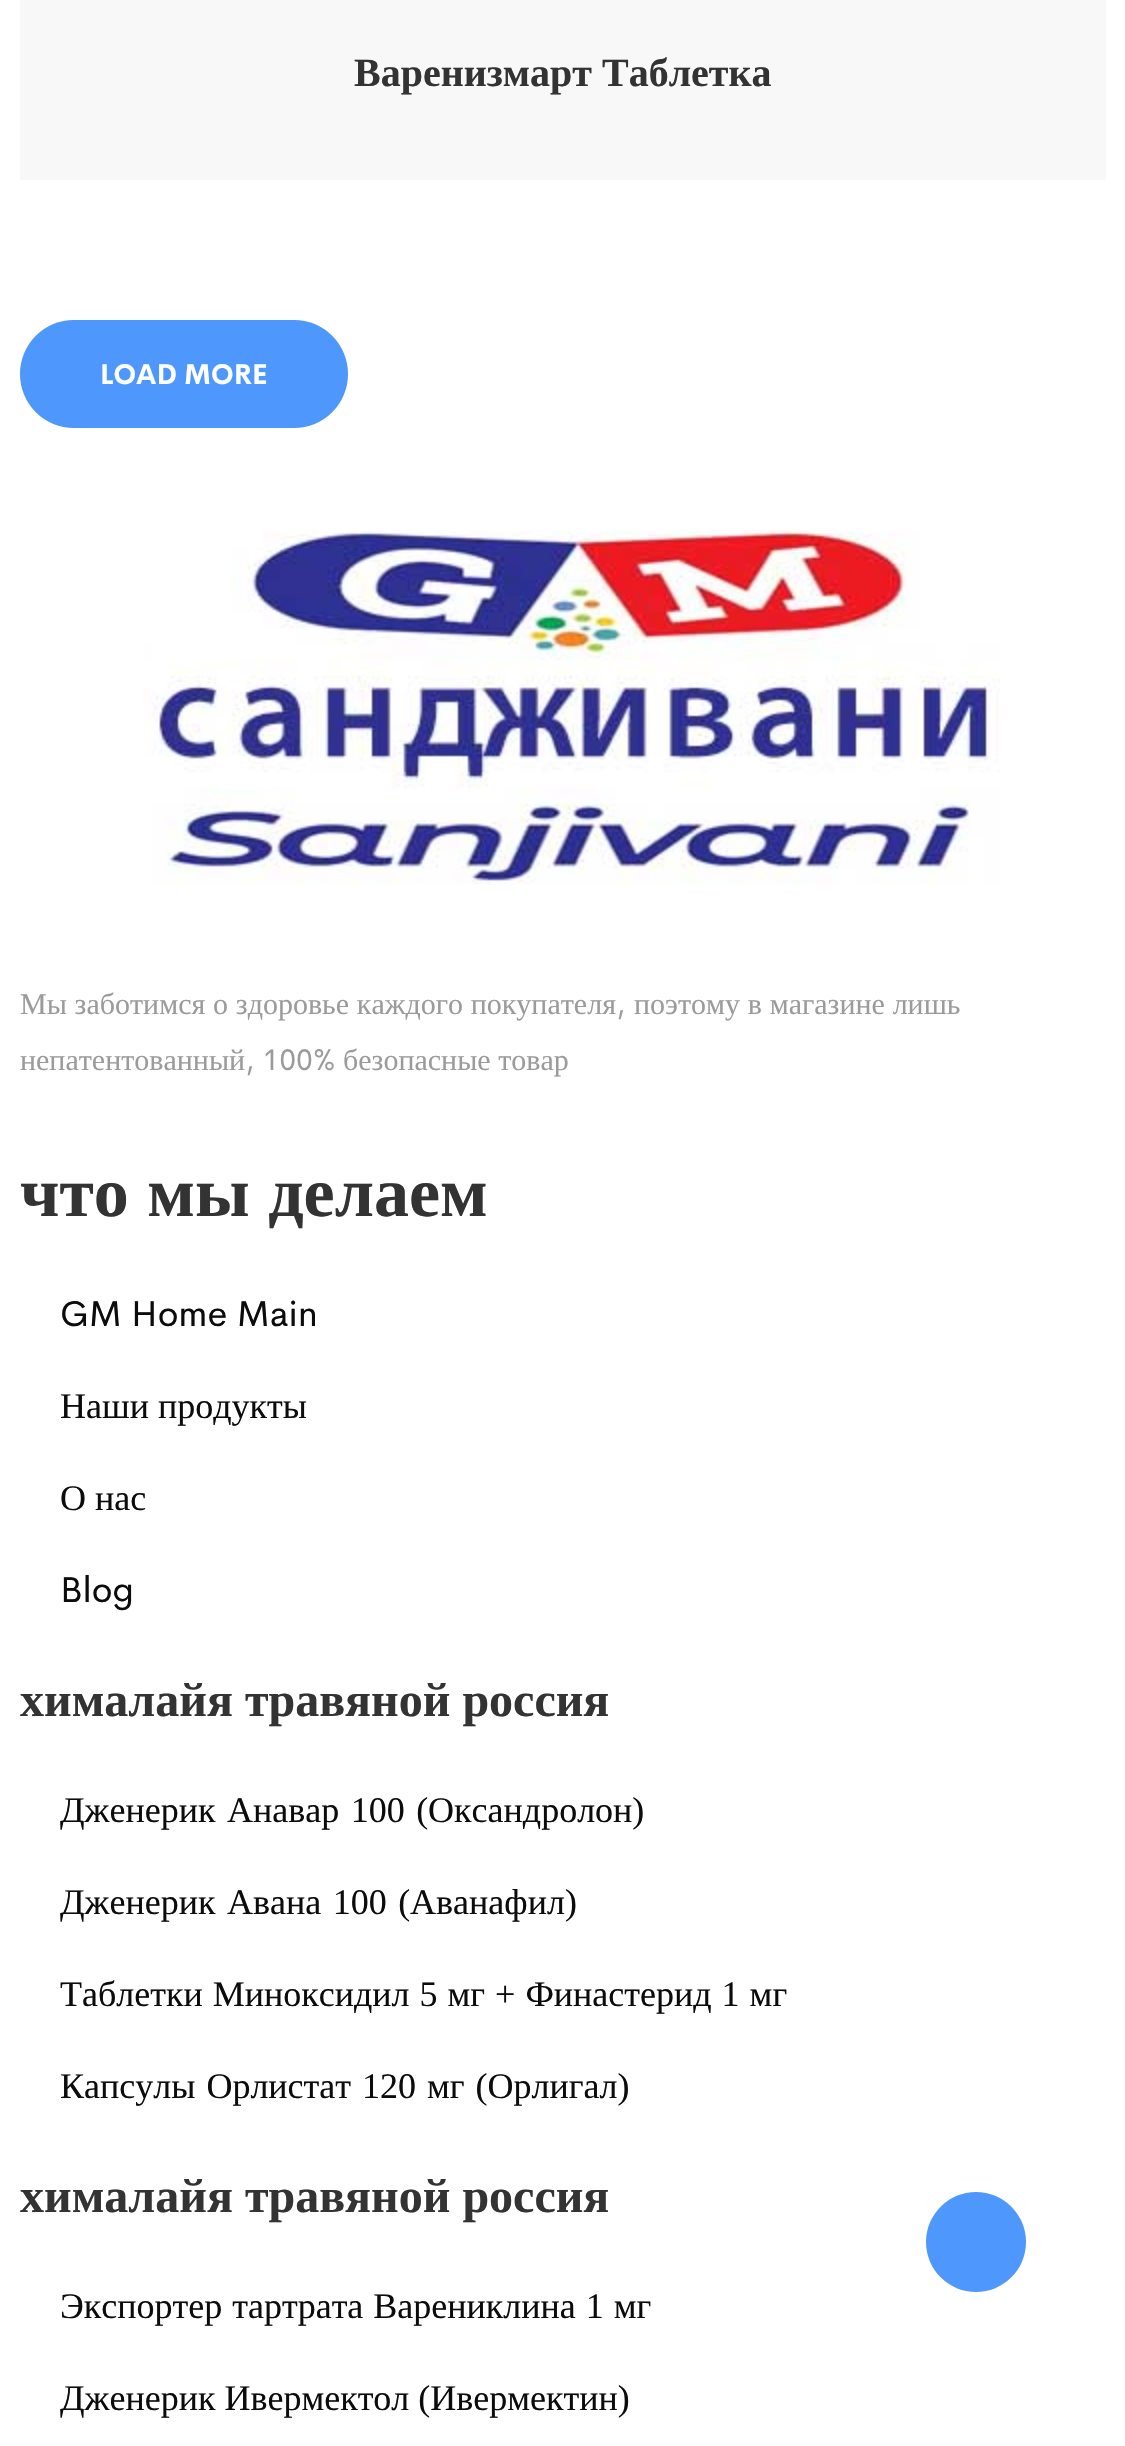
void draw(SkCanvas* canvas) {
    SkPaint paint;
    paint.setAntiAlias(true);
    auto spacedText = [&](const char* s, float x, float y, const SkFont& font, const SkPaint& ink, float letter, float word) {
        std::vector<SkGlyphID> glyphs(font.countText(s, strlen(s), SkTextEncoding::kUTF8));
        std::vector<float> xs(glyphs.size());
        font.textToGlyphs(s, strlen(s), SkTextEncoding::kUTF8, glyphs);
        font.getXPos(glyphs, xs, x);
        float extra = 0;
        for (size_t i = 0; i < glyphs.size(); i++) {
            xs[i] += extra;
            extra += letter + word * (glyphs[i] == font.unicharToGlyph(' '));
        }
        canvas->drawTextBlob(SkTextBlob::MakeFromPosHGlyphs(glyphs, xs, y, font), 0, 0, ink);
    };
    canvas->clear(0xFFFFFFFF);
    paint.setColor(0xFFF8F8F8);
    canvas->drawRect(SkRect::MakeXYWH(20, 0, 1086, 180), paint);
    SkFont font1(fontMgr->matchFamilyStyle("Liberation Serif", SkFontStyle::Bold()), 40);
    font1.setSubpixel(true);
    paint.setColor(0xFF333333);
    canvas->drawString("Варенизмарт Таблетка", 354, 86, font1, paint);
    paint.setColor(0xFF4E97FD);
    canvas->drawRoundRect(SkRect::MakeXYWH(20, 320, 328, 108), 54, 54, paint);
    SkFont font2(fontMgr->matchFamilyStyle("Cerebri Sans", SkFontStyle::Bold()), 28);
    font2.setSubpixel(true);
    paint.setColor(0xFFFFFFFF);
    canvas->drawString("LOAD MORE", 100, 384, font2, paint);
    canvas->drawImageRect(SkImages::DeferredFromEncodedData(SkData::MakeFromFileName("img1.png")), SkRect::MakeXYWH(143, 530, 857, 355), SkSamplingOptions());
    SkFont font3(fontMgr->matchFamilyStyle("Liberation Serif", SkFontStyle::Normal()), 30);
    font3.setSubpixel(true);
    paint.setColor(0xFF9B9B9B);
    spacedText("Мы заботимся о здоровье каждого покупателя", 20, 1014, font3, paint, 0, 0.25f);
    SkFont font4(fontMgr->matchFamilyStyle("Cerebri Sans", SkFontStyle::Normal()), 30);
    font4.setSubpixel(true);
    canvas->drawString(",", 616, 1014, font4, paint);
    spacedText("поэтому в магазине лишь", 634, 1014, font3, paint, 0, 0.25f);
    canvas->drawString("непатентованный", 20, 1070, font3, paint);
    canvas->drawString(", 100%", 245, 1070, font4, paint);
    canvas->drawString("безопасные товар", 343, 1070, font3, paint);
    SkFont font5(fontMgr->matchFamilyStyle("Liberation Serif", SkFontStyle::Bold()), 70);
    font5.setSubpixel(true);
    paint.setColor(0xFF333333);
    spacedText("что мы делаем", 20, 1216, font5, paint, 0, 1);
    SkFont font6(fontMgr->matchFamilyStyle("Cerebri Sans", SkFontStyle::Normal()), 36);
    font6.setSubpixel(true);
    paint.setColor(0xFF0C0C0C);
    canvas->drawString("GM Home Main", 60, 1326, font6, paint);
    SkFont font7(fontMgr->matchFamilyStyle("Liberation Serif", SkFontStyle::Normal()), 36);
    font7.setSubpixel(true);
    canvas->drawString("Наши продукты", 60, 1418, font7, paint);
    canvas->drawString("О нас", 60, 1510, font7, paint);
    canvas->drawString("Blog", 60, 1602, font6, paint);
    SkFont font8(fontMgr->matchFamilyStyle("Liberation Serif", SkFontStyle::Bold()), 48);
    font8.setSubpixel(true);
    paint.setColor(0xFF333333);
    canvas->drawString("хималайя травяной россия", 20, 1716, font8, paint);
    paint.setColor(0xFF0C0C0C);
    spacedText("Дженерик Анавар 100 (Оксандролон)", 60, 1822, font7, paint, 0, 2.5f);
    spacedText("Дженерик Авана 100 (Аванафил)", 60, 1914, font7, paint, 0, 2.5f);
    spacedText("Таблетки Миноксидил 5 мг + Финастерид 1 мг", 60, 2006, font7, paint, 0, 1);
    spacedText("Капсулы Орлистат 120 мг (Орлигал)", 60, 2098, font7, paint, 0, 2);
    paint.setColor(0xFF333333);
    canvas->drawString("хималайя травяной россия", 20, 2212, font8, paint);
    paint.setColor(0xFF0C0C0C);
    spacedText("Экспортер тартрата Варениклина 1 мг", 60, 2318, font7, paint, 0, 1);
    canvas->drawString("Дженерик Ивермектол (Ивермектин)", 60, 2410, font7, paint);
    paint.setColor(0xFF4E97FD);
    canvas->drawCircle(976, 2242, 50, paint);
}
